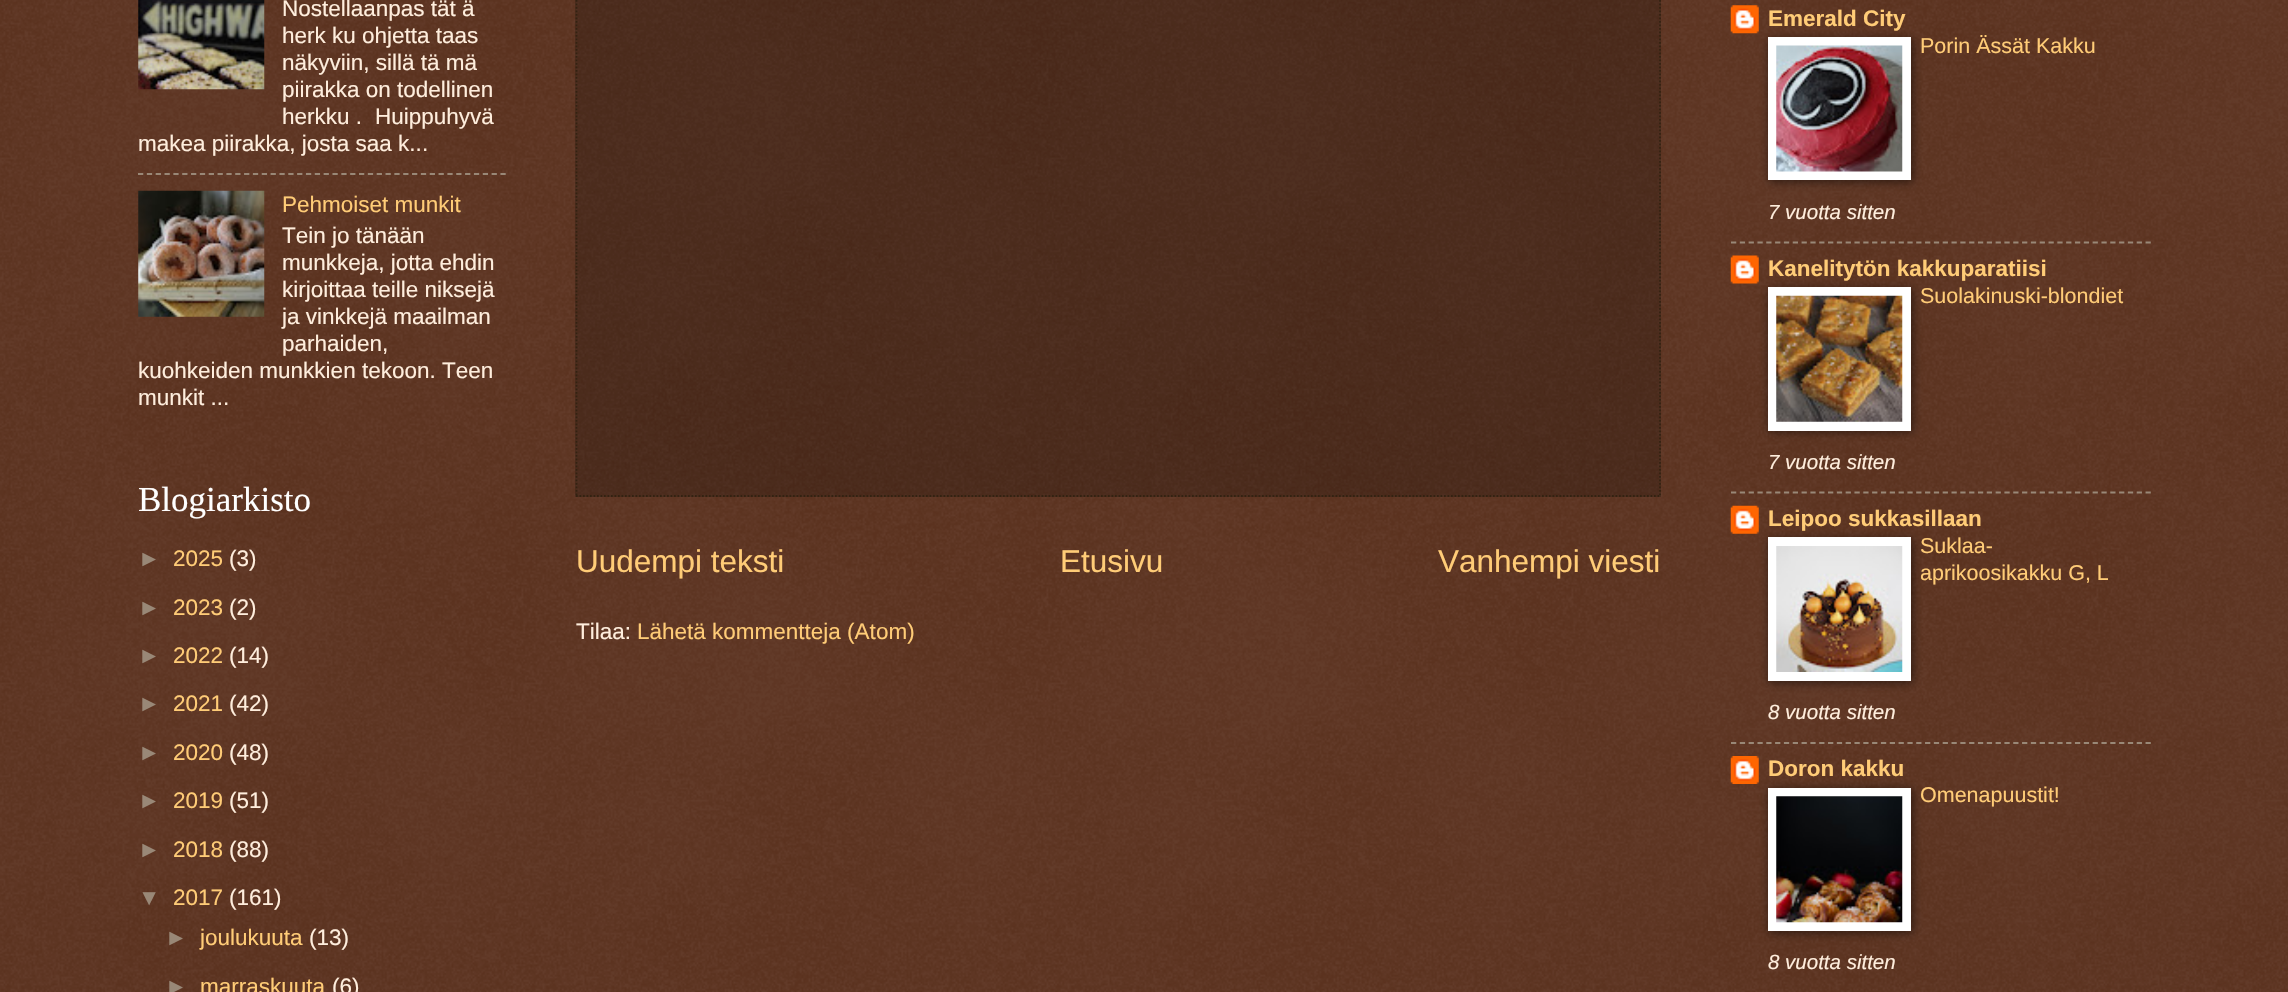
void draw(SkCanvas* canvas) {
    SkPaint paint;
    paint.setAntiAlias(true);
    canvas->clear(0xFF441500);
    canvas->drawImageRect(SkImages::DeferredFromEncodedData(SkData::MakeFromFileName("img1.png")), SkRect::MakeXYWH(0, 0, 2288, 992), SkSamplingOptions());
    canvas->drawImageRect(SkImages::DeferredFromEncodedData(SkData::MakeFromFileName("img2.png")), SkRect::MakeXYWH(138, 0, 127, 90), SkSamplingOptions());
    SkFont font1(fontMgr->matchFamilyStyle("Liberation Sans", SkFontStyle::Normal()), 22.5f);
    font1.setSubpixel(true);
    paint.setColor(0xFFFFEEDD);
    canvas->drawString("Nostellaanpas tät ä", 282, 16, font1, paint);
    canvas->drawString("herk ku ohjetta taas", 282, 43, font1, paint);
    canvas->drawString("näkyviin, sillä tä mä", 282, 70, font1, paint);
    canvas->drawString("piirakka on todellinen", 282, 97, font1, paint);
    canvas->drawString("herkku .", 282, 124, font1, paint);
    canvas->drawString("Huippuhyvä", 375, 124, font1, paint);
    canvas->drawString("makea piirakka, josta saa k...", 138, 151, font1, paint);
    paint.setStyle(SkPaint::kStroke_Style);
    paint.setStrokeWidth(1.8f);
    paint.setColor(0xFF998877);
    paint.setPathEffect(SkDashPathEffect::Make({{5.25f, 3.59f}}, 0));
    canvas->drawPath(SkPathBuilder().moveTo(138, 174).lineTo(506, 174).detach(), paint);
    paint.setPathEffect(nullptr);
    canvas->drawImageRect(SkImages::DeferredFromEncodedData(SkData::MakeFromFileName("img3.png")), SkRect::MakeXYWH(138, 190, 127, 127), SkSamplingOptions());
    paint.setStyle(SkPaint::kFill_Style);
    paint.setColor(0xFFFFCC77);
    canvas->drawString("Pehmoiset munkit", 282, 212, font1, paint);
    paint.setColor(0xFFFFEEDD);
    canvas->drawString("Tein jo tänään", 282, 243, font1, paint);
    canvas->drawString("munkkeja, jotta ehdin", 282, 270, font1, paint);
    canvas->drawString("kirjoittaa teille niksejä", 282, 297, font1, paint);
    canvas->drawString("ja vinkkejä maailman", 282, 324, font1, paint);
    canvas->drawString("parhaiden,", 282, 351, font1, paint);
    canvas->drawString("kuohkeiden munkkien tekoon. Teen", 138, 378, font1, paint);
    canvas->drawString("munkit ...", 138, 405, font1, paint);
    SkFont font2(fontMgr->matchFamilyStyle("Liberation Serif", SkFontStyle::Normal()), 35);
    font2.setSubpixel(true);
    paint.setColor(0xFFFFFFFF);
    canvas->drawString("Blogiarkisto", 138, 511, font2, paint);
    paint.setColor(0xFF998877);
    canvas->drawString("►", 138, 566, font1, paint);
    paint.setColor(0xFFFFCC77);
    canvas->drawString("2025", 173, 566, font1, paint);
    paint.setColor(0xFFFFEEDD);
    canvas->drawString("(3)", 229, 566, font1, paint);
    paint.setColor(0xFF998877);
    canvas->drawString("►", 138, 615, font1, paint);
    paint.setColor(0xFFFFCC77);
    canvas->drawString("2023", 173, 615, font1, paint);
    paint.setColor(0xFFFFEEDD);
    canvas->drawString("(2)", 229, 615, font1, paint);
    paint.setColor(0xFF998877);
    canvas->drawString("►", 138, 663, font1, paint);
    paint.setColor(0xFFFFCC77);
    canvas->drawString("2022", 173, 663, font1, paint);
    paint.setColor(0xFFFFEEDD);
    canvas->drawString("(14)", 229, 663, font1, paint);
    paint.setColor(0xFF998877);
    canvas->drawString("►", 138, 711, font1, paint);
    paint.setColor(0xFFFFCC77);
    canvas->drawString("2021", 173, 711, font1, paint);
    paint.setColor(0xFFFFEEDD);
    canvas->drawString("(42)", 229, 711, font1, paint);
    paint.setColor(0xFF998877);
    canvas->drawString("►", 138, 760, font1, paint);
    paint.setColor(0xFFFFCC77);
    canvas->drawString("2020", 173, 760, font1, paint);
    paint.setColor(0xFFFFEEDD);
    canvas->drawString("(48)", 229, 760, font1, paint);
    paint.setColor(0xFF998877);
    canvas->drawString("►", 138, 808, font1, paint);
    paint.setColor(0xFFFFCC77);
    canvas->drawString("2019", 173, 808, font1, paint);
    paint.setColor(0xFFFFEEDD);
    canvas->drawString("(51)", 229, 808, font1, paint);
    paint.setColor(0xFF998877);
    canvas->drawString("►", 138, 857, font1, paint);
    paint.setColor(0xFFFFCC77);
    canvas->drawString("2018", 173, 857, font1, paint);
    paint.setColor(0xFFFFEEDD);
    canvas->drawString("(88)", 229, 857, font1, paint);
    paint.setColor(0xFF998877);
    canvas->drawString("▼", 138, 905, font1, paint);
    paint.setColor(0xFFFFCC77);
    canvas->drawString("2017", 173, 905, font1, paint);
    paint.setColor(0xFFFFEEDD);
    canvas->drawString("(161)", 229, 905, font1, paint);
    paint.setColor(0xFF998877);
    canvas->drawString("►", 165, 945, font1, paint);
    paint.setColor(0xFFFFCC77);
    canvas->drawString("joulukuuta", 200, 945, font1, paint);
    paint.setColor(0xFFFFEEDD);
    canvas->drawString("(13)", 309, 945, font1, paint);
    paint.setColor(0xFF998877);
    canvas->drawString("►", 165, 994, font1, paint);
    paint.setColor(0xFFFFCC77);
    canvas->drawString("marraskuuta", 200, 994, font1, paint);
    paint.setColor(0xFFFFEEDD);
    canvas->drawString("(6)", 332, 994, font1, paint);
    paint.setColor(0x33000000);
    canvas->drawRect(SkRect::MakeXYWH(575, 0, 1086, 497), paint);
    paint.setStyle(SkPaint::kStroke_Style);
    paint.setColor(0xFF332211);
    paint.setPathEffect(SkDashPathEffect::Make({{1.75f, 1.75f}}, 0));
    canvas->drawPath(SkPathBuilder().moveTo(1660, -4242).lineTo(1660, 497).detach(), paint);
    paint.setPathEffect(nullptr);
    paint.setPathEffect(SkDashPathEffect::Make({{1.75f, 1.75f}}, 0));
    canvas->drawPath(SkPathBuilder().moveTo(576, 496).lineTo(1661, 496).detach(), paint);
    paint.setPathEffect(nullptr);
    paint.setPathEffect(SkDashPathEffect::Make({{1.75f, 1.75f}}, 0));
    canvas->drawPath(SkPathBuilder().moveTo(576.5f, -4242).lineTo(576.5f, 497).detach(), paint);
    paint.setPathEffect(nullptr);
    SkFont font3(fontMgr->matchFamilyStyle("Liberation Sans", SkFontStyle::Normal()), 31.5f);
    font3.setSubpixel(true);
    paint.setStyle(SkPaint::kFill_Style);
    paint.setColor(0xFFFFCC77);
    canvas->drawString("Uudempi teksti", 576, 572, font3, paint);
    canvas->drawString("Etusivu", 1060, 572, font3, paint);
    canvas->drawString("Vanhempi viesti", 1438, 572, font3, paint);
    paint.setColor(0xFFFFEEDD);
    canvas->drawString("Tilaa:", 576, 639, font1, paint);
    paint.setColor(0xFFFFCC77);
    canvas->drawString("Lähetä kommentteja (Atom)", 637, 639, font1, paint);
    canvas->drawImageRect(SkImages::DeferredFromEncodedData(SkData::MakeFromFileName("img4.png")), SkRect::MakeXYWH(1730, 5, 29, 29), SkSamplingOptions());
    SkFont font4(fontMgr->matchFamilyStyle("Liberation Sans", SkFontStyle::Bold()), 22.5f);
    font4.setSubpixel(true);
    canvas->drawString("Emerald City", 1768, 26, font4, paint);
    paint.setColor(0x80000000);
    paint.setMaskFilter(SkMaskFilter::MakeBlur(kNormal_SkBlurStyle, 4.5f));
    canvas->drawRect(SkRect::MakeXYWH(1769, 39, 144, 143), paint);
    paint.setMaskFilter(nullptr);
    paint.setColor(0xFFFFFFFF);
    canvas->drawRect(SkRect::MakeXYWH(1768, 37, 143, 143), paint);
    canvas->drawImageRect(SkImages::DeferredFromEncodedData(SkData::MakeFromFileName("img5.png")), SkRect::MakeXYWH(1776, 45, 127, 127), SkSamplingOptions());
    SkFont font5(fontMgr->matchFamilyStyle("Liberation Sans", SkFontStyle::Normal()), 21.5f);
    font5.setSubpixel(true);
    paint.setColor(0xFFFFCC77);
    canvas->drawString("Porin Ässät Kakku", 1920, 53, font5, paint);
    SkFont font6(fontMgr->matchFamilyStyle("Liberation Sans", SkFontStyle::Italic()), 20.5f);
    font6.setSubpixel(true);
    paint.setColor(0xFFFFEEDD);
    canvas->drawString("7 vuotta sitten", 1768, 219, font6, paint);
    paint.setStyle(SkPaint::kStroke_Style);
    paint.setColor(0xFF998877);
    paint.setPathEffect(SkDashPathEffect::Make({{5.25f, 3.57f}}, 0));
    canvas->drawPath(SkPathBuilder().moveTo(1731, 242.5f).lineTo(2151, 242.5f).detach(), paint);
    paint.setPathEffect(nullptr);
    canvas->drawImageRect(SkImages::DeferredFromEncodedData(SkData::MakeFromFileName("img6.png")), SkRect::MakeXYWH(1730, 255, 29, 29), SkSamplingOptions());
    paint.setStyle(SkPaint::kFill_Style);
    paint.setColor(0xFFFFCC77);
    canvas->drawString("Kanelitytön kakkuparatiisi", 1768, 276, font4, paint);
    paint.setColor(0x80000000);
    paint.setMaskFilter(SkMaskFilter::MakeBlur(kNormal_SkBlurStyle, 4.5f));
    canvas->drawRect(SkRect::MakeXYWH(1769, 289, 144, 143), paint);
    paint.setMaskFilter(nullptr);
    paint.setColor(0xFFFFFFFF);
    canvas->drawRect(SkRect::MakeXYWH(1768, 287, 143, 144), paint);
    canvas->drawImageRect(SkImages::DeferredFromEncodedData(SkData::MakeFromFileName("img7.png")), SkRect::MakeXYWH(1776, 295, 127, 127), SkSamplingOptions());
    paint.setColor(0xFFFFCC77);
    canvas->drawString("Suolakinuski-blondiet", 1920, 303, font5, paint);
    paint.setColor(0xFFFFEEDD);
    canvas->drawString("7 vuotta sitten", 1768, 469, font6, paint);
    paint.setStyle(SkPaint::kStroke_Style);
    paint.setColor(0xFF998877);
    paint.setPathEffect(SkDashPathEffect::Make({{5.25f, 3.57f}}, 0));
    canvas->drawPath(SkPathBuilder().moveTo(1731, 492.5f).lineTo(2151, 492.5f).detach(), paint);
    paint.setPathEffect(nullptr);
    canvas->drawImageRect(SkImages::DeferredFromEncodedData(SkData::MakeFromFileName("img8.png")), SkRect::MakeXYWH(1730, 505, 29, 29), SkSamplingOptions());
    paint.setStyle(SkPaint::kFill_Style);
    paint.setColor(0xFFFFCC77);
    canvas->drawString("Leipoo sukkasillaan", 1768, 526, font4, paint);
    paint.setColor(0x80000000);
    paint.setMaskFilter(SkMaskFilter::MakeBlur(kNormal_SkBlurStyle, 4.5f));
    canvas->drawRect(SkRect::MakeXYWH(1769, 539, 144, 144), paint);
    paint.setMaskFilter(nullptr);
    paint.setColor(0xFFFFFFFF);
    canvas->drawRect(SkRect::MakeXYWH(1768, 537, 143, 144), paint);
    canvas->drawImageRect(SkImages::DeferredFromEncodedData(SkData::MakeFromFileName("img9.png")), SkRect::MakeXYWH(1776, 546, 127, 126), SkSamplingOptions());
    paint.setColor(0xFFFFCC77);
    canvas->drawString("Suklaa-", 1920, 553, font5, paint);
    canvas->drawString("aprikoosikakku G, L", 1920, 580, font5, paint);
    paint.setColor(0xFFFFEEDD);
    canvas->drawString("8 vuotta sitten", 1768, 719, font6, paint);
    paint.setStyle(SkPaint::kStroke_Style);
    paint.setColor(0xFF998877);
    paint.setPathEffect(SkDashPathEffect::Make({{5.25f, 3.57f}}, 0));
    canvas->drawPath(SkPathBuilder().moveTo(1731, 743).lineTo(2151, 743).detach(), paint);
    paint.setPathEffect(nullptr);
    canvas->drawImageRect(SkImages::DeferredFromEncodedData(SkData::MakeFromFileName("img10.png")), SkRect::MakeXYWH(1730, 756, 29, 28), SkSamplingOptions());
    paint.setStyle(SkPaint::kFill_Style);
    paint.setColor(0xFFFFCC77);
    canvas->drawString("Doron kakku", 1768, 776, font4, paint);
    paint.setColor(0x80000000);
    paint.setMaskFilter(SkMaskFilter::MakeBlur(kNormal_SkBlurStyle, 4.5f));
    canvas->drawRect(SkRect::MakeXYWH(1769, 789, 144, 144), paint);
    paint.setMaskFilter(nullptr);
    paint.setColor(0xFFFFFFFF);
    canvas->drawRect(SkRect::MakeXYWH(1768, 788, 143, 143), paint);
    canvas->drawImageRect(SkImages::DeferredFromEncodedData(SkData::MakeFromFileName("img11.png")), SkRect::MakeXYWH(1776, 796, 127, 127), SkSamplingOptions());
    paint.setColor(0xFFFFCC77);
    canvas->drawString("Omenapuustit!", 1920, 802, font5, paint);
    paint.setColor(0xFFFFEEDD);
    canvas->drawString("8 vuotta sitten", 1768, 969, font6, paint);
}
